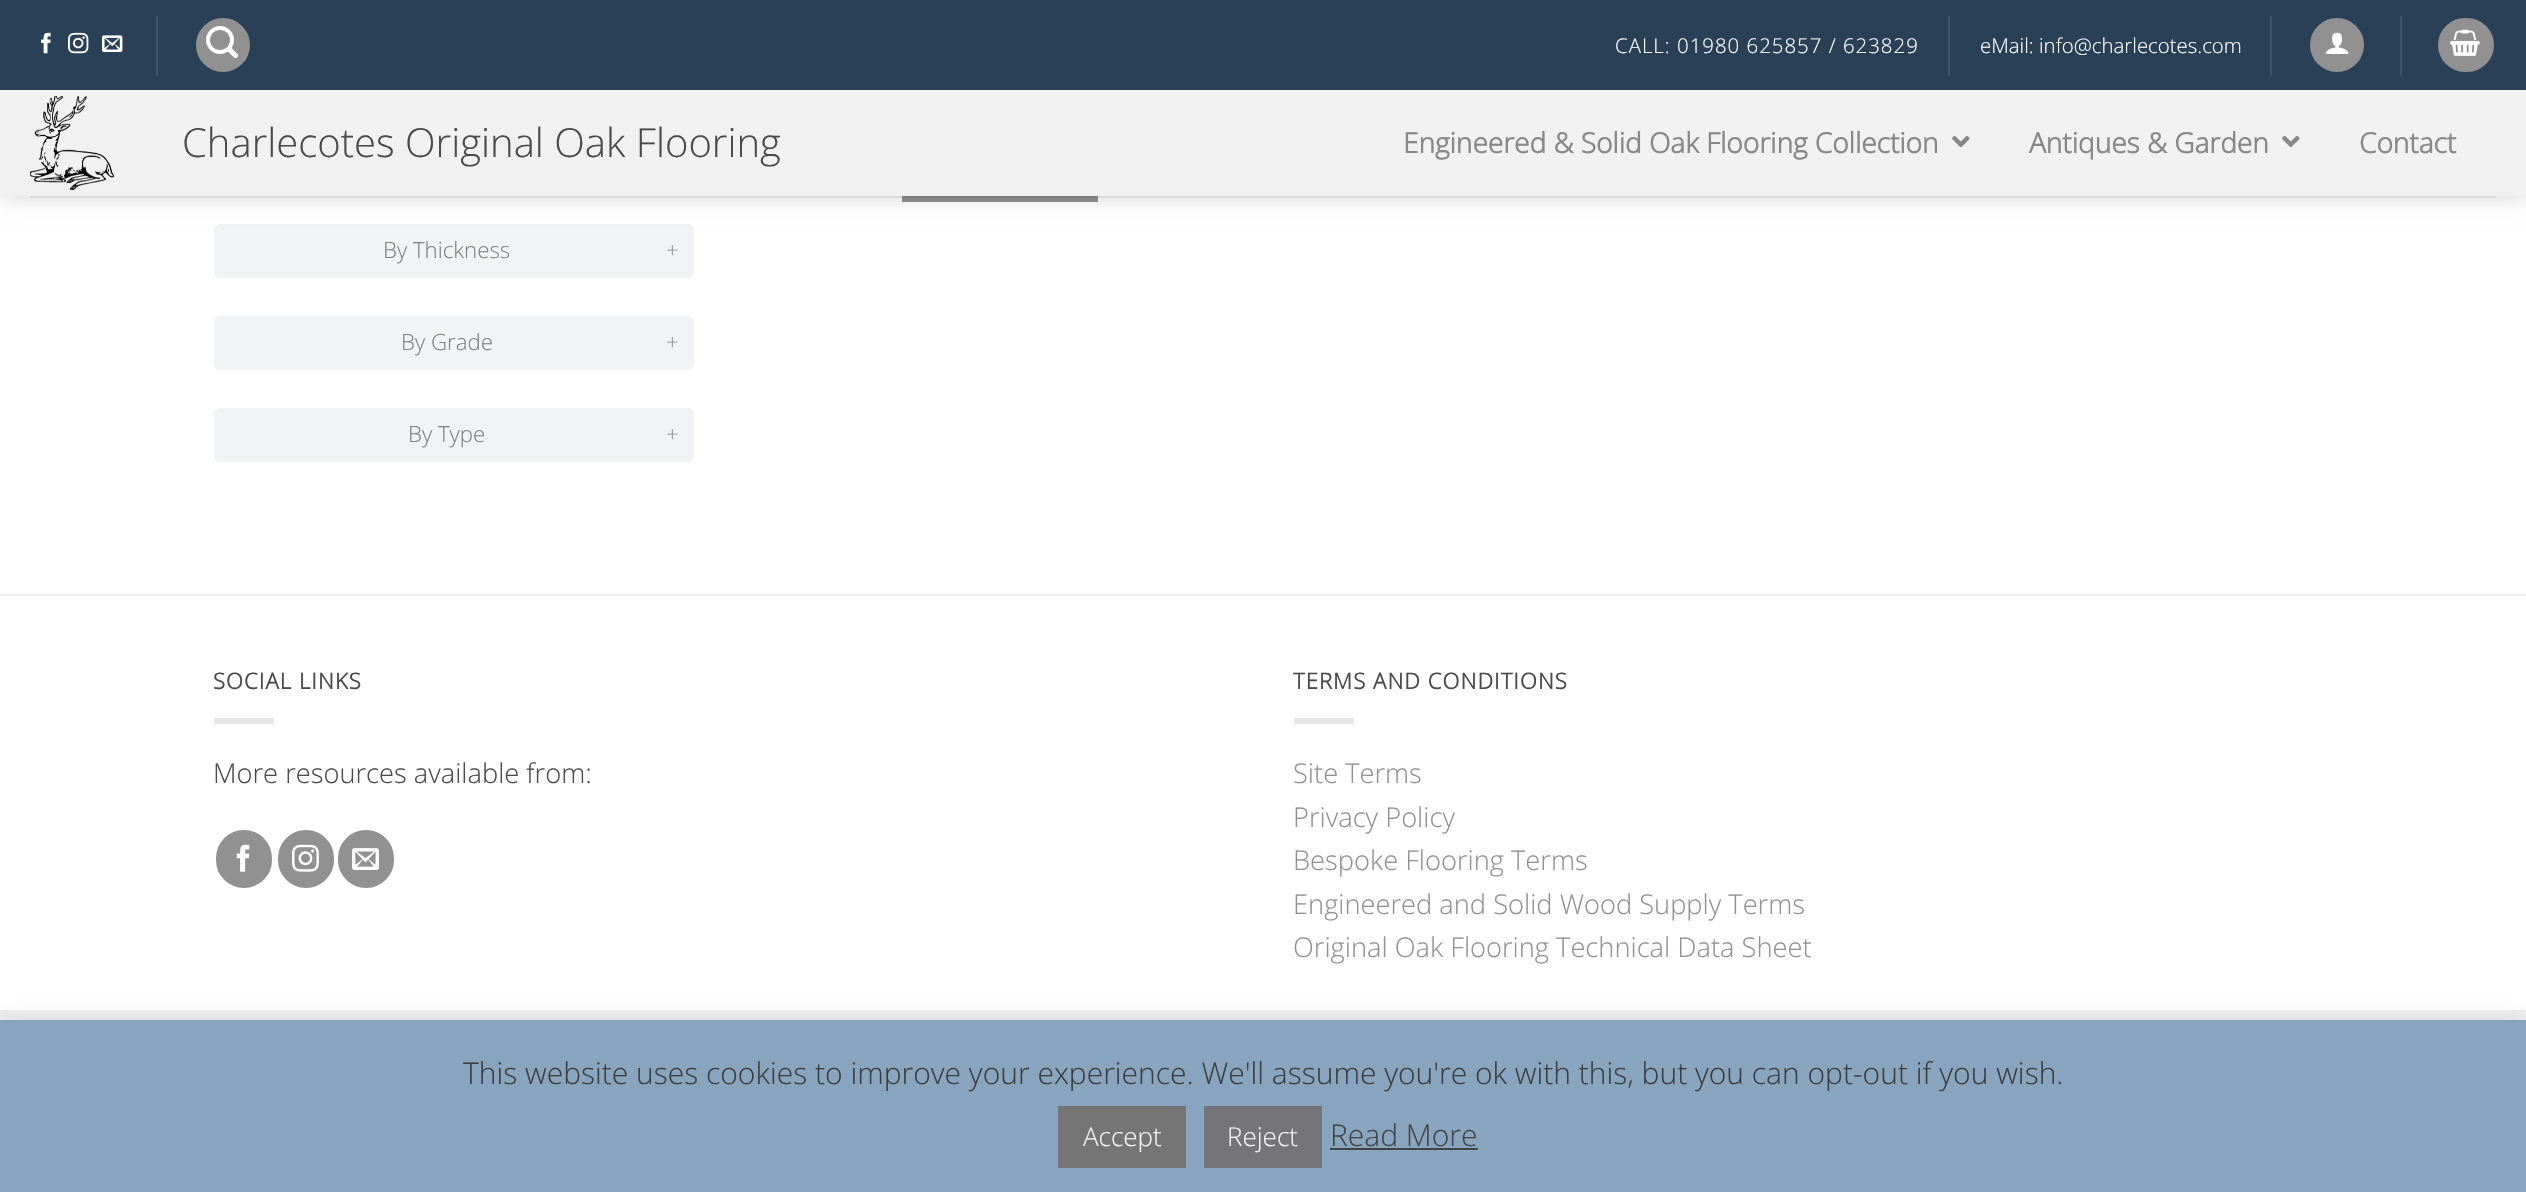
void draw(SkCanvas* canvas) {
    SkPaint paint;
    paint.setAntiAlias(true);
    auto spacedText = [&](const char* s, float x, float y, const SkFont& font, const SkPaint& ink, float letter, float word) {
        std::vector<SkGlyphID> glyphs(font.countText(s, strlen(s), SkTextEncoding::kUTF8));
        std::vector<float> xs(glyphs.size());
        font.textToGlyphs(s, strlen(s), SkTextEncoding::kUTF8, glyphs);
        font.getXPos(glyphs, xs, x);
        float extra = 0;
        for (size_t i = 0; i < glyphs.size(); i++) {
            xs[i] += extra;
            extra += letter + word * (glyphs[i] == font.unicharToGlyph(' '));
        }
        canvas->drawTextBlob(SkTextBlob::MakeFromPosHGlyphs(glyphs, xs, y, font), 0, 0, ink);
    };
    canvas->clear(0xFFFFFFFF);
    paint.setColor(0xFF919191);
    canvas->drawRect(SkRect::MakeXYWH(902, 196, 196, 6), paint);
    paint.setColor(0xFFF2F3F5);
    canvas->drawRoundRect(SkRect::MakeXYWH(214, 224, 480, 54), 6, 6, paint);
    paint.setColor(0x26000000);
    paint.setMaskFilter(SkMaskFilter::MakeBlur(kNormal_SkBlurStyle, 10));
    canvas->drawRect(SkRect::MakeXYWH(2, 2, 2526, 196), paint);
    paint.setMaskFilter(nullptr);
    paint.setColor(0xFF294057);
    canvas->drawRect(SkRect::MakeXYWH(0, 0, 2526, 90), paint);
    canvas->drawImageRect(SkImages::DeferredFromEncodedData(SkData::MakeFromFileName("img1.png")), SkRect::MakeXYWH(41, 32, 10, 22), SkSamplingOptions());
    canvas->drawImageRect(SkImages::DeferredFromEncodedData(SkData::MakeFromFileName("img2.png")), SkRect::MakeXYWH(68, 32, 21, 22), SkSamplingOptions());
    canvas->drawImageRect(SkImages::DeferredFromEncodedData(SkData::MakeFromFileName("img3.png")), SkRect::MakeXYWH(102, 35, 21, 17), SkSamplingOptions());
    paint.setColor(0xFF3E5368);
    canvas->drawRect(SkRect::MakeXYWH(156, 16, 2, 60), paint);
    paint.setColor(0xFF919191);
    canvas->drawCircle(223, 45, 26, paint);
    paint.setStyle(SkPaint::kStroke_Style);
    paint.setStrokeWidth(2);
    canvas->drawCircle(223, 45, 26, paint);
    canvas->drawImageRect(SkImages::DeferredFromEncodedData(SkData::MakeFromFileName("img4.png")), SkRect::MakeXYWH(206, 26, 32, 32), SkSamplingOptions());
    SkFont font1(fontMgr->matchFamilyStyle("Open Sans", SkFontStyle(300, SkFontStyle::kNormal_Width, SkFontStyle::kUpright_Slant)), 20.4f);
    font1.setSubpixel(true);
    paint.setStyle(SkPaint::kFill_Style);
    paint.setColor(0xFFFFFFFF);
    spacedText("CALL: 01980 625857 / 623829", 1615, 53, font1, paint, 1, 0);
    paint.setColor(0xFF3E5368);
    canvas->drawRect(SkRect::MakeXYWH(1948, 16, 2, 60), paint);
    paint.setColor(0xFFFFFFFF);
    canvas->drawString("eMail: info@charlecotes.com", 1980, 53, font1, paint);
    paint.setColor(0xFF3E5368);
    canvas->drawRect(SkRect::MakeXYWH(2270, 16, 2, 60), paint);
    paint.setColor(0xFF919191);
    canvas->drawCircle(2337, 45, 26, paint);
    paint.setStyle(SkPaint::kStroke_Style);
    canvas->drawCircle(2337, 45, 26, paint);
    canvas->drawImageRect(SkImages::DeferredFromEncodedData(SkData::MakeFromFileName("img5.png")), SkRect::MakeXYWH(2325, 32, 24, 22), SkSamplingOptions());
    paint.setStyle(SkPaint::kFill_Style);
    paint.setColor(0xFF3E5368);
    canvas->drawRect(SkRect::MakeXYWH(2400, 16, 2, 60), paint);
    paint.setColor(0xFF919191);
    canvas->drawRoundRect(SkRect::MakeXYWH(2439, 19, 54, 52), 26, 26, paint);
    paint.setStyle(SkPaint::kStroke_Style);
    canvas->drawRoundRect(SkRect::MakeXYWH(2439, 19, 54, 52), 26, 26, paint);
    canvas->drawImageRect(SkImages::DeferredFromEncodedData(SkData::MakeFromFileName("img6.png")), SkRect::MakeXYWH(2450, 29, 30, 27), SkSamplingOptions());
    paint.setStyle(SkPaint::kFill_Style);
    paint.setColor(0xFFF1F1F1);
    canvas->drawRect(SkRect::MakeXYWH(0, 90, 2526, 106), paint);
    canvas->drawImageRect(SkImages::DeferredFromEncodedData(SkData::MakeFromFileName("img7.png")), SkRect::MakeXYWH(30, 96, 84, 95), SkSamplingOptions());
    SkFont font2(fontMgr->matchFamilyStyle("Open Sans", SkFontStyle(300, SkFontStyle::kNormal_Width, SkFontStyle::kUpright_Slant)), 40);
    font2.setSubpixel(true);
    paint.setColor(0xFF4A4A4A);
    canvas->drawString("Charlecotes Original Oak Flooring", 182, 157, font2, paint);
    SkFont font3(fontMgr->matchFamilyStyle("Open Sans", SkFontStyle::Bold()), 28);
    font3.setSubpixel(true);
    paint.setColor(0xFF888888);
    canvas->drawString("Engineered & Solid Oak Flooring Collection", 1403, 153, font3, paint);
    canvas->drawImageRect(SkImages::DeferredFromEncodedData(SkData::MakeFromFileName("img8.png")), SkRect::MakeXYWH(1952, 135, 18, 13), SkSamplingOptions());
    canvas->drawString("Antiques & Garden", 2029, 153, font3, paint);
    canvas->drawImageRect(SkImages::DeferredFromEncodedData(SkData::MakeFromFileName("img8.png")), SkRect::MakeXYWH(2282, 135, 18, 13), SkSamplingOptions());
    canvas->drawString("Contact", 2359, 153, font3, paint);
    paint.setColor(0x1A4A4A4A);
    canvas->drawRect(SkRect::MakeXYWH(30, 196, 2466, 2), paint);
    SkFont font4(fontMgr->matchFamilyStyle("Open Sans", SkFontStyle(300, SkFontStyle::kNormal_Width, SkFontStyle::kUpright_Slant)), 22.25f);
    font4.setSubpixel(true);
    paint.setColor(0xFF808080);
    canvas->drawString("By Thickness", 383, 258, font4, paint);
    paint.setColor(0xFF919191);
    canvas->drawString("+", 666, 258, font4, paint);
    paint.setColor(0xFFF2F3F5);
    canvas->drawRoundRect(SkRect::MakeXYWH(214, 316, 480, 54), 6, 6, paint);
    paint.setColor(0xFF808080);
    canvas->drawString("By Grade", 401, 350, font4, paint);
    paint.setColor(0xFF919191);
    canvas->drawString("+", 666, 350, font4, paint);
    paint.setColor(0xFFF2F3F5);
    canvas->drawRoundRect(SkRect::MakeXYWH(214, 408, 480, 54), 6, 6, paint);
    paint.setColor(0xFF808080);
    canvas->drawString("By Type", 408, 442, font4, paint);
    paint.setColor(0xFF919191);
    canvas->drawString("+", 666, 442, font4, paint);
    paint.setColor(0xFFF2F2F2);
    canvas->drawRect(SkRect::MakeXYWH(0, 594, 2526, 2), paint);
    SkFont font5(fontMgr->matchFamilyStyle("Open Sans", SkFontStyle::Bold()), 22);
    font5.setSubpixel(true);
    paint.setColor(0xFF4A4A4A);
    spacedText("SOCIAL LINKS", 213, 689, font5, paint, 1.1f, 0);
    paint.setColor(0xFFE6E6E6);
    canvas->drawRect(SkRect::MakeXYWH(214, 718, 60, 6), paint);
    SkFont font6(fontMgr->matchFamilyStyle("Open Sans", SkFontStyle(300, SkFontStyle::kNormal_Width, SkFontStyle::kUpright_Slant)), 27.25f);
    font6.setSubpixel(true);
    paint.setColor(0xFF4A4A4A);
    canvas->drawString("More resources available from:", 213, 783, font6, paint);
    paint.setColor(0xFF919191);
    canvas->drawRoundRect(SkRect::MakeXYWH(218, 832, 52, 54), 26, 26, paint);
    paint.setStyle(SkPaint::kStroke_Style);
    paint.setStrokeWidth(4);
    canvas->drawRoundRect(SkRect::MakeXYWH(218, 832, 52, 54), 26, 26, paint);
    canvas->drawImageRect(SkImages::DeferredFromEncodedData(SkData::MakeFromFileName("img9.png")), SkRect::MakeXYWH(236, 844, 14, 28), SkSamplingOptions());
    paint.setStyle(SkPaint::kFill_Style);
    canvas->drawRoundRect(SkRect::MakeXYWH(280, 832, 52, 54), 26, 26, paint);
    paint.setStyle(SkPaint::kStroke_Style);
    canvas->drawRoundRect(SkRect::MakeXYWH(280, 832, 52, 54), 26, 26, paint);
    canvas->drawImageRect(SkImages::DeferredFromEncodedData(SkData::MakeFromFileName("img10.png")), SkRect::MakeXYWH(292, 844, 27, 28), SkSamplingOptions());
    paint.setStyle(SkPaint::kFill_Style);
    canvas->drawRoundRect(SkRect::MakeXYWH(340, 832, 52, 54), 26, 26, paint);
    paint.setStyle(SkPaint::kStroke_Style);
    canvas->drawRoundRect(SkRect::MakeXYWH(340, 832, 52, 54), 26, 26, paint);
    canvas->drawImageRect(SkImages::DeferredFromEncodedData(SkData::MakeFromFileName("img11.png")), SkRect::MakeXYWH(352, 848, 27, 22), SkSamplingOptions());
    paint.setStyle(SkPaint::kFill_Style);
    paint.setColor(0xFF4A4A4A);
    spacedText("TERMS AND CONDITIONS", 1293, 689, font5, paint, 1.1f, 0);
    paint.setColor(0xFFE6E6E6);
    canvas->drawRect(SkRect::MakeXYWH(1294, 718, 60, 6), paint);
    paint.setColor(0xFF919191);
    canvas->drawString("Site Terms", 1293, 783, font6, paint);
    canvas->drawString("Privacy Policy", 1293, 827, font6, paint);
    canvas->drawString("Bespoke Flooring Terms", 1293, 870, font6, paint);
    canvas->drawString("Engineered and Solid Wood Supply Terms", 1293, 914, font6, paint);
    canvas->drawString("Original Oak Flooring Technical Data Sheet", 1293, 957, font6, paint);
    paint.setColor(0xFFEFEFEF);
    canvas->drawRect(SkRect::MakeXYWH(0, 1010, 2526, 10), paint);
    paint.setColor(0x4DACABAB);
    paint.setMaskFilter(SkMaskFilter::MakeBlur(kNormal_SkBlurStyle, 10));
    canvas->drawRect(SkRect::MakeXYWH(0, 1018, 2526, 172), paint);
    paint.setMaskFilter(nullptr);
    paint.setColor(0xFF87A5BF);
    canvas->drawRect(SkRect::MakeXYWH(0, 1020, 2526, 172), paint);
    SkFont font7(fontMgr->matchFamilyStyle("Open Sans", SkFontStyle(300, SkFontStyle::kNormal_Width, SkFontStyle::kUpright_Slant)), 30);
    font7.setSubpixel(true);
    paint.setColor(0xFF3D3D3D);
    canvas->drawString("This website uses cookies to improve your experience. We'll assume you're ok with this, but you can opt-out if you wish.", 463, 1084, font7, paint);
    paint.setColor(0xFF757575);
    canvas->drawRect(SkRect::MakeXYWH(1058, 1106, 128, 62), paint);
    SkFont font8(fontMgr->matchFamilyStyle("Open Sans", SkFontStyle(300, SkFontStyle::kNormal_Width, SkFontStyle::kUpright_Slant)), 26);
    font8.setSubpixel(true);
    paint.setColor(0xFFF2F2F2);
    canvas->drawString("Accept", 1083, 1146, font8, paint);
    paint.setColor(0xFF757579);
    canvas->drawRect(SkRect::MakeXYWH(1204, 1106, 118, 62), paint);
    paint.setColor(0xFFF2F2F2);
    canvas->drawString("Reject", 1227, 1146, font8, paint);
    paint.setColor(0xFF444444);
    canvas->drawString("Read More", 1330, 1146, font7, paint);
    canvas->drawRect(SkRect::MakeXYWH(1330, 1148, 148, 2), paint);
}
